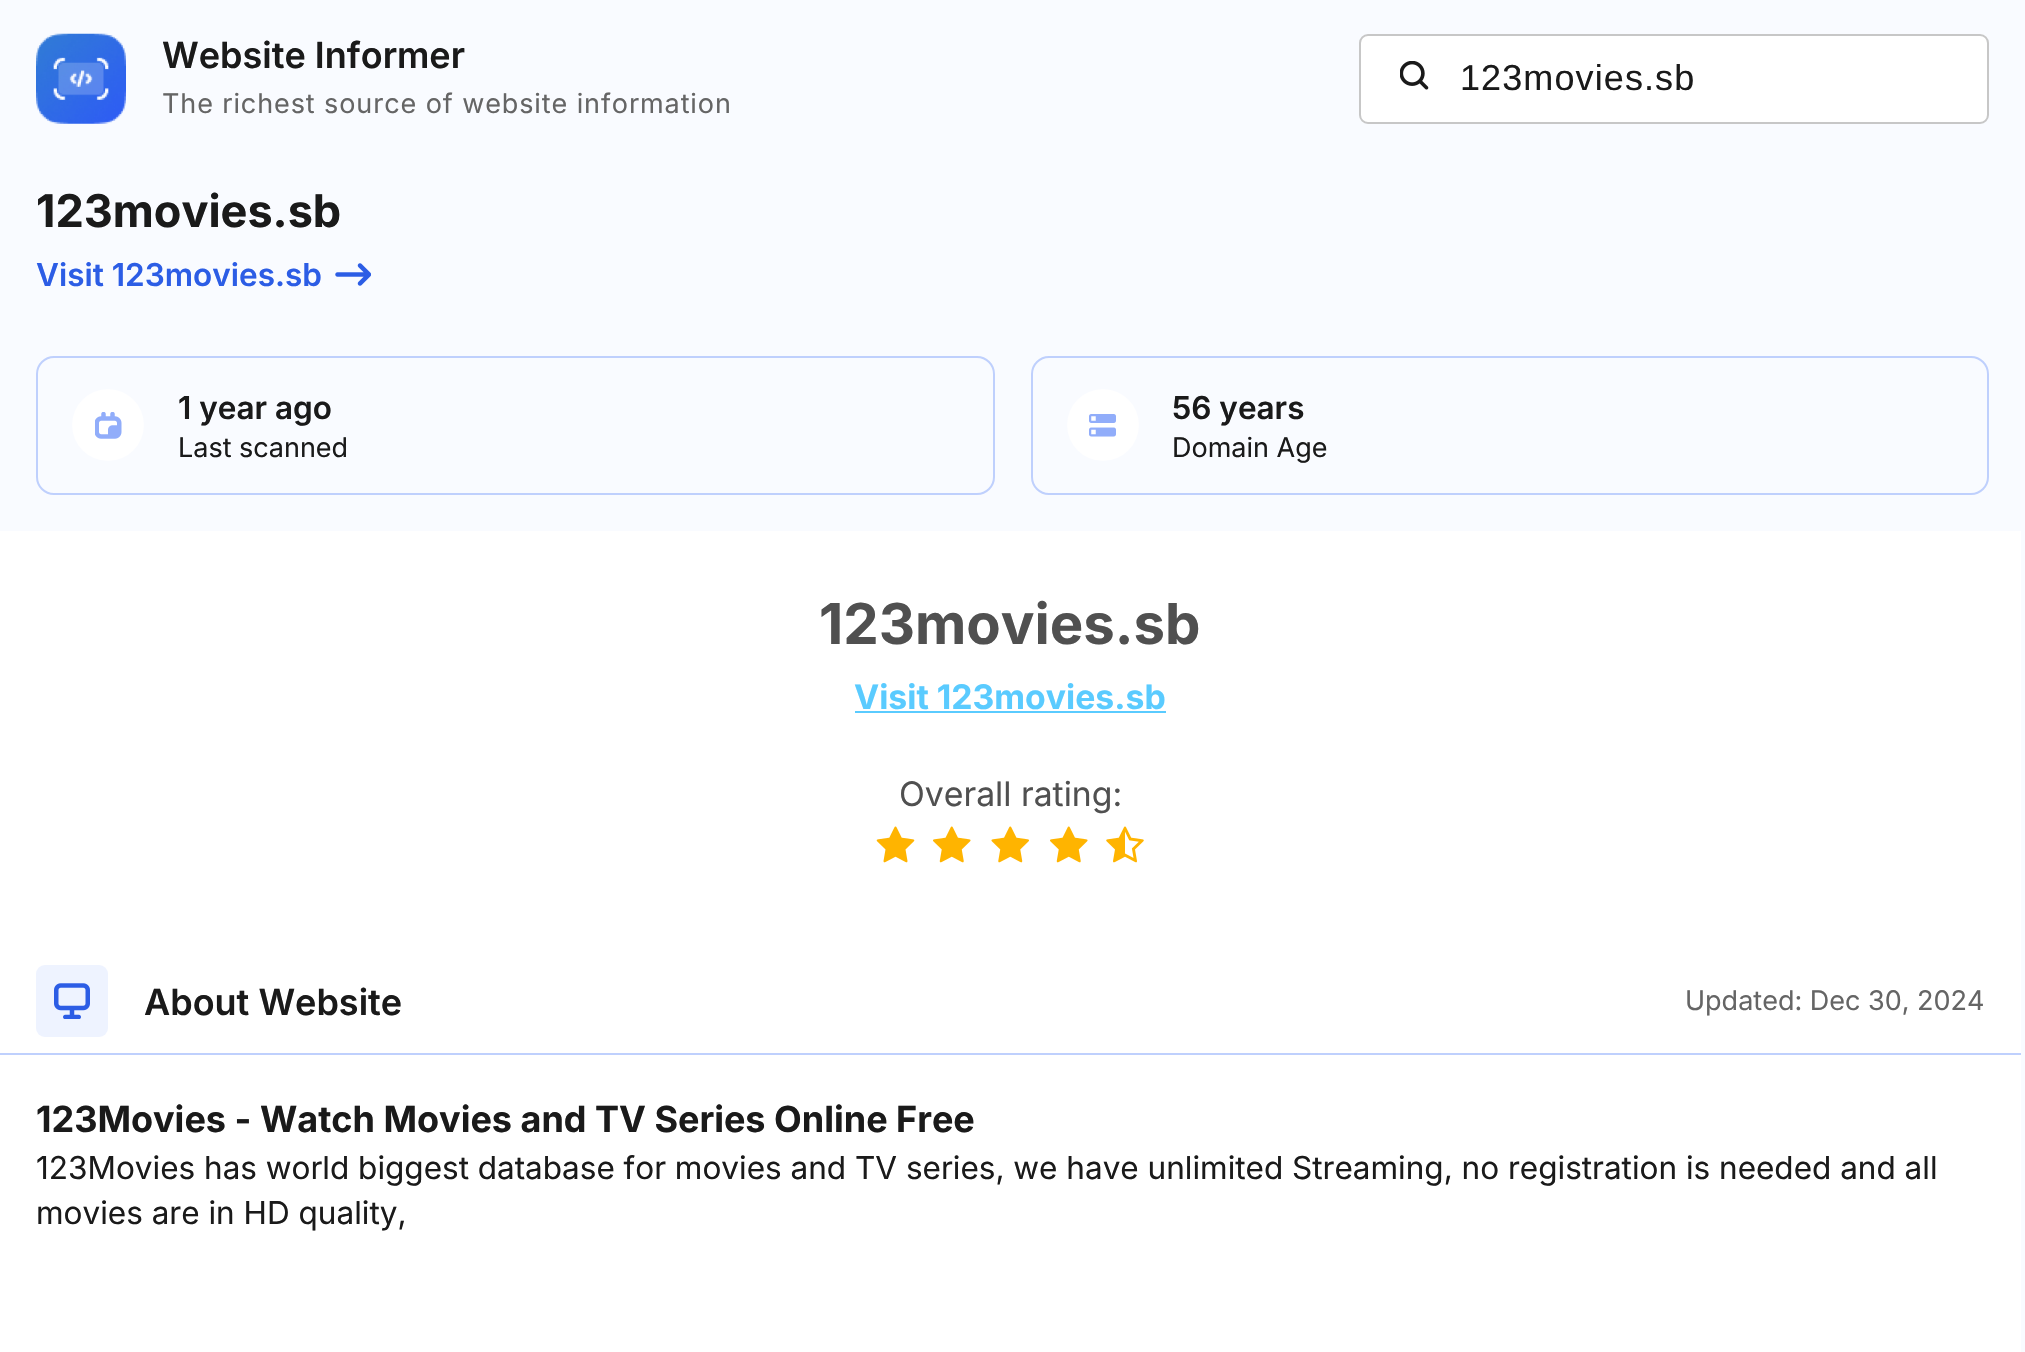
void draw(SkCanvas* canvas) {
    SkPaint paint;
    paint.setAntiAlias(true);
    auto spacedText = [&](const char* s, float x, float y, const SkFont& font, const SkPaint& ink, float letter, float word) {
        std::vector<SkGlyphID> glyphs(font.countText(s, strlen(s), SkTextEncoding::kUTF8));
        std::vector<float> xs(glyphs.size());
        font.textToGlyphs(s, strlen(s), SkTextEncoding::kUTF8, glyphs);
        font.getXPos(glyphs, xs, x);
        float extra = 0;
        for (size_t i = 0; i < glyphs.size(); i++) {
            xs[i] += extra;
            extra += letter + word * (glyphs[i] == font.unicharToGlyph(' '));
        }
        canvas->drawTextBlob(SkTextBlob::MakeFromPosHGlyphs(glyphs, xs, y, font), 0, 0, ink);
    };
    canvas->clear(0xFFF9FBFF);
    canvas->drawImageRect(SkImages::DeferredFromEncodedData(SkData::MakeFromFileName("img1.png")), SkRect::MakeXYWH(36, 33, 90, 91), SkSamplingOptions());
    SkFont font1(fontMgr->matchFamilyStyle("Inter", SkFontStyle(600, SkFontStyle::kNormal_Width, SkFontStyle::kUpright_Slant)), 36);
    font1.setSubpixel(true);
    paint.setColor(0xFF1A1A1A);
    canvas->drawString("Website Informer", 162, 68, font1, paint);
    SkFont font2(fontMgr->matchFamilyStyle("Inter", SkFontStyle::Normal()), 27);
    font2.setSubpixel(true);
    paint.setColor(0xFF656565);
    spacedText("The richest source of website information", 162, 113, font2, paint, 0.9f, 0);
    paint.setColor(0xFFFFFFFF);
    canvas->drawRoundRect(SkRect::MakeXYWH(1360, 35, 628, 88), 8, 8, paint);
    paint.setStyle(SkPaint::kStroke_Style);
    paint.setStrokeWidth(2);
    paint.setColor(0xFFC7C7C7);
    canvas->drawRoundRect(SkRect::MakeXYWH(1360, 35, 628, 88), 8, 8, paint);
    canvas->drawImageRect(SkImages::DeferredFromEncodedData(SkData::MakeFromFileName("img2.png")), SkRect::MakeXYWH(1400, 61, 29, 29), SkSamplingOptions());
    SkFont font3(fontMgr->matchFamilyStyle("Liberation Sans", SkFontStyle::Normal()), 36);
    font3.setSubpixel(true);
    paint.setStyle(SkPaint::kFill_Style);
    paint.setColor(0xFF1A1A1A);
    spacedText("123movies.sb", 1460, 90, font3, paint, 1.1f, 0);
    SkFont font4(fontMgr->matchFamilyStyle("Inter", SkFontStyle::Bold()), 45);
    font4.setSubpixel(true);
    canvas->drawString("123movies.sb", 36, 227, font4, paint);
    SkFont font5(fontMgr->matchFamilyStyle("Inter", SkFontStyle(600, SkFontStyle::kNormal_Width, SkFontStyle::kUpright_Slant)), 31.5f);
    font5.setSubpixel(true);
    paint.setColor(0xFF2C5DE5);
    canvas->drawString("Visit 123movies.sb", 36, 286, font5, paint);
    canvas->drawImageRect(SkImages::DeferredFromEncodedData(SkData::MakeFromFileName("img3.png")), SkRect::MakeXYWH(335, 263, 36, 23), SkSamplingOptions());
    paint.setStyle(SkPaint::kStroke_Style);
    paint.setColor(0xFFBFD0FD);
    canvas->drawRoundRect(SkRect::MakeXYWH(37, 357, 957, 137), 17, 17, paint);
    paint.setStyle(SkPaint::kFill_Style);
    paint.setColor(0xFFFFFFFF);
    canvas->drawCircle(108, 425, 36, paint);
    canvas->drawImageRect(SkImages::DeferredFromEncodedData(SkData::MakeFromFileName("img4.png")), SkRect::MakeXYWH(95, 412, 27, 27), SkSamplingOptions());
    paint.setColor(0xFF1A1A1A);
    canvas->drawString("1 year ago", 178, 419, font5, paint);
    canvas->drawString("Last scanned", 178, 457, font2, paint);
    paint.setStyle(SkPaint::kStroke_Style);
    paint.setColor(0xFFBFD0FD);
    canvas->drawRoundRect(SkRect::MakeXYWH(1032, 357, 956, 137), 17, 17, paint);
    paint.setStyle(SkPaint::kFill_Style);
    paint.setColor(0xFFFFFFFF);
    canvas->drawCircle(1103, 425, 36, paint);
    canvas->drawImageRect(SkImages::DeferredFromEncodedData(SkData::MakeFromFileName("img5.png")), SkRect::MakeXYWH(1089, 414, 27, 23), SkSamplingOptions());
    paint.setColor(0xFF1A1A1A);
    canvas->drawString("56 years", 1172, 419, font5, paint);
    canvas->drawString("Domain Age", 1172, 457, font2, paint);
    paint.setColor(0xFFFFFFFF);
    canvas->drawRect(SkRect::MakeXYWH(0, 531, 2021, 821), paint);
    SkFont font6(fontMgr->matchFamilyStyle("Inter", SkFontStyle::Bold()), 56.25f);
    font6.setSubpixel(true);
    paint.setColor(0xFF505050);
    canvas->drawString("123movies.sb", 819, 644, font6, paint);
    SkFont font7(fontMgr->matchFamilyStyle("Inter", SkFontStyle::Bold()), 33.75f);
    font7.setSubpixel(true);
    paint.setColor(0xFF5ACBFF);
    canvas->drawString("Visit 123movies.sb", 854, 709, font7, paint);
    canvas->drawRect(SkRect::MakeXYWH(855, 711, 311, 2), paint);
    SkFont font8(fontMgr->matchFamilyStyle("Inter", SkFontStyle::Normal()), 33.75f);
    font8.setSubpixel(true);
    paint.setColor(0xFF505050);
    canvas->drawString("Overall rating:", 899, 806, font8, paint);
    canvas->drawImageRect(SkImages::DeferredFromEncodedData(SkData::MakeFromFileName("img6.png")), SkRect::MakeXYWH(876, 826, 39, 37), SkSamplingOptions());
    canvas->drawImageRect(SkImages::DeferredFromEncodedData(SkData::MakeFromFileName("img7.png")), SkRect::MakeXYWH(933, 826, 38, 37), SkSamplingOptions());
    canvas->drawImageRect(SkImages::DeferredFromEncodedData(SkData::MakeFromFileName("img8.png")), SkRect::MakeXYWH(991, 826, 38, 37), SkSamplingOptions());
    canvas->drawImageRect(SkImages::DeferredFromEncodedData(SkData::MakeFromFileName("img7.png")), SkRect::MakeXYWH(1050, 826, 38, 37), SkSamplingOptions());
    canvas->drawImageRect(SkImages::DeferredFromEncodedData(SkData::MakeFromFileName("img9.png")), SkRect::MakeXYWH(1106, 826, 38, 37), SkSamplingOptions());
    paint.setColor(0xFFEEF3FF);
    canvas->drawRoundRect(SkRect::MakeXYWH(36, 965, 72, 72), 9, 9, paint);
    canvas->drawImageRect(SkImages::DeferredFromEncodedData(SkData::MakeFromFileName("img10.png")), SkRect::MakeXYWH(54, 983, 36, 36), SkSamplingOptions());
    paint.setColor(0xFF1A1A1A);
    canvas->drawString("About Website", 144, 1015, font1, paint);
    paint.setColor(0xFF656565);
    canvas->drawString("Updated: Dec 30, 2024", 1685, 1010, font2, paint);
    paint.setColor(0xFFBFD0FD);
    canvas->drawRect(SkRect::MakeXYWH(0, 1053, 2021, 2), paint);
    SkFont font9(fontMgr->matchFamilyStyle("Inter", SkFontStyle::Bold()), 36);
    font9.setSubpixel(true);
    paint.setColor(0xFF1A1A1A);
    canvas->drawString("123Movies - Watch Movies and TV Series Online Free", 36, 1132, font9, paint);
    SkFont font10(fontMgr->matchFamilyStyle("Inter", SkFontStyle::Normal()), 31.5f);
    font10.setSubpixel(true);
    canvas->drawString("123Movies has world biggest database for movies and TV series, we have unlimited Streaming, no registration is needed and all", 36, 1179, font10, paint);
    canvas->drawString("movies are in HD quality,", 36, 1224, font10, paint);
}
